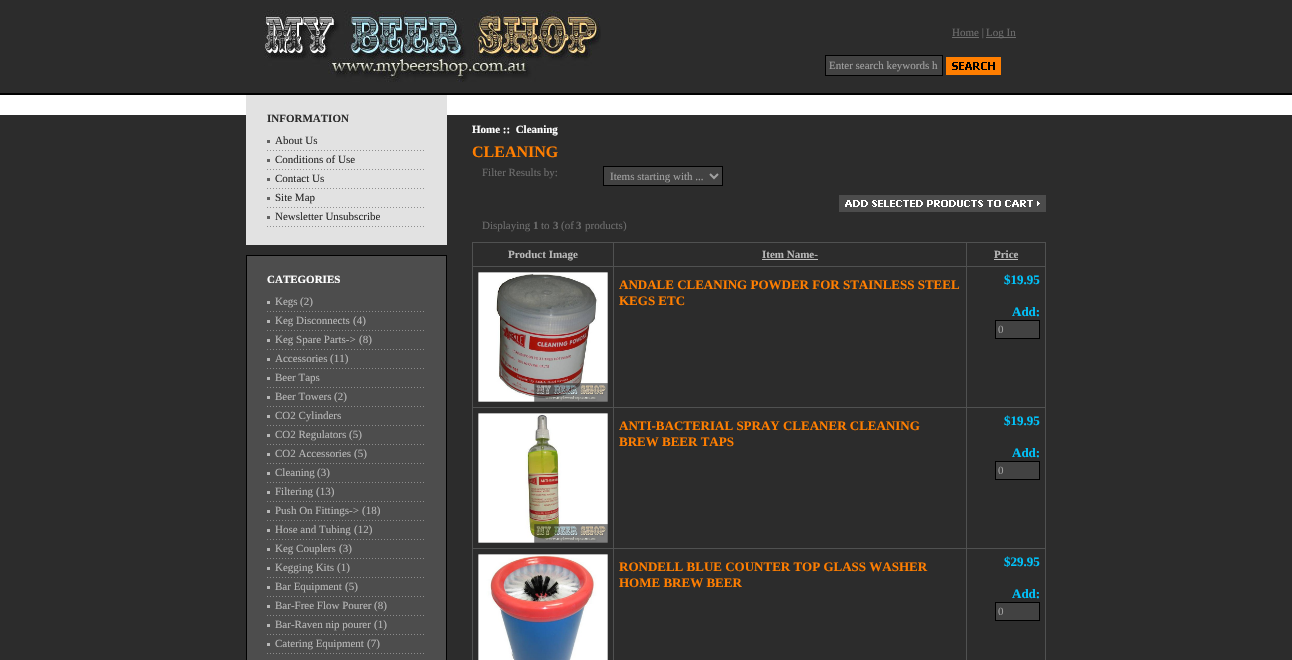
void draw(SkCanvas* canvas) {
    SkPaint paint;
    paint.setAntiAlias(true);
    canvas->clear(0xFF2C2C2C);
    paint.setColor(0xFF000000);
    canvas->drawRect(SkRect::MakeXYWH(0, 93, 1292, 2), paint);
    canvas->drawImageRect(SkImages::DeferredFromEncodedData(SkData::MakeFromFileName("img1.png")), SkRect::MakeXYWH(264, 10, 337, 72), SkSamplingOptions());
    paint.setColor(0xFF6D6D6D);
    canvas->drawRect(SkRect::MakeXYWH(952, 37, 27, 1), paint);
    SkFont font1(fontMgr->matchFamilyStyle("Liberation Serif", SkFontStyle::Normal()), 11);
    font1.setSubpixel(true);
    canvas->drawString("Home |", 952, 36, font1, paint);
    canvas->drawRect(SkRect::MakeXYWH(986, 37, 30, 1), paint);
    canvas->drawString("Log In", 986, 36, font1, paint);
    paint.setColor(0xFF424242);
    canvas->drawRect(SkRect::MakeXYWH(825.5f, 55.5f, 117, 20), paint);
    paint.setStyle(SkPaint::kStroke_Style);
    paint.setStrokeWidth(1);
    paint.setColor(0xFF000000);
    canvas->drawRect(SkRect::MakeXYWH(825.5f, 55.5f, 117, 20), paint);
    paint.setStyle(SkPaint::kFill_Style);
    paint.setColor(0xFFA1A1A1);
    canvas->drawString("Enter search keywords h", 829, 69, font1, paint);
    canvas->drawImageRect(SkImages::DeferredFromEncodedData(SkData::MakeFromFileName("img2.png")), SkRect::MakeXYWH(946, 57, 55, 18), SkSamplingOptions());
    paint.setColor(0xFFFFFFFF);
    canvas->drawRect(SkRect::MakeXYWH(0, 95, 1292, 20), paint);
    paint.setColor(0xFFE2E2E2);
    canvas->drawRect(SkRect::MakeXYWH(246, 95, 201, 150), paint);
    SkFont font2(fontMgr->matchFamilyStyle("Liberation Serif", SkFontStyle::Bold()), 11);
    font2.setSubpixel(true);
    paint.setColor(0xFF2C2C2C);
    canvas->drawString("INFORMATION", 267, 122, font2, paint);
    canvas->drawImageRect(SkImages::DeferredFromEncodedData(SkData::MakeFromFileName("img3.png")), SkRect::MakeXYWH(267, 150, 157, 1), SkSamplingOptions());
    canvas->drawString("About Us", 275, 144, font1, paint);
    paint.setColor(0xFF626262);
    canvas->drawRect(SkRect::MakeXYWH(267, 140, 3, 3), paint);
    canvas->drawImageRect(SkImages::DeferredFromEncodedData(SkData::MakeFromFileName("img3.png")), SkRect::MakeXYWH(267, 169, 157, 1), SkSamplingOptions());
    paint.setColor(0xFF2C2C2C);
    canvas->drawString("Conditions of Use", 275, 163, font1, paint);
    paint.setColor(0xFF626262);
    canvas->drawRect(SkRect::MakeXYWH(267, 159, 3, 3), paint);
    canvas->drawImageRect(SkImages::DeferredFromEncodedData(SkData::MakeFromFileName("img3.png")), SkRect::MakeXYWH(267, 188, 157, 1), SkSamplingOptions());
    paint.setColor(0xFF2C2C2C);
    canvas->drawString("Contact Us", 275, 182, font1, paint);
    paint.setColor(0xFF626262);
    canvas->drawRect(SkRect::MakeXYWH(267, 178, 3, 3), paint);
    canvas->drawImageRect(SkImages::DeferredFromEncodedData(SkData::MakeFromFileName("img3.png")), SkRect::MakeXYWH(267, 207, 157, 1), SkSamplingOptions());
    paint.setColor(0xFF2C2C2C);
    canvas->drawString("Site Map", 275, 201, font1, paint);
    paint.setColor(0xFF626262);
    canvas->drawRect(SkRect::MakeXYWH(267, 197, 3, 3), paint);
    canvas->drawImageRect(SkImages::DeferredFromEncodedData(SkData::MakeFromFileName("img3.png")), SkRect::MakeXYWH(267, 226, 157, 1), SkSamplingOptions());
    paint.setColor(0xFF2C2C2C);
    canvas->drawString("Newsletter Unsubscribe", 275, 220, font1, paint);
    paint.setColor(0xFF626262);
    canvas->drawRect(SkRect::MakeXYWH(267, 216, 3, 3), paint);
    paint.setColor(0xFF4D4D4D);
    canvas->drawRect(SkRect::MakeXYWH(247, 256, 199, 404), paint);
    paint.setColor(0xFF000000);
    canvas->drawRect(SkRect::MakeXYWH(446, 255, 1, 405), paint);
    canvas->drawRect(SkRect::MakeXYWH(246, 255, 201, 1), paint);
    canvas->drawRect(SkRect::MakeXYWH(246, 256, 1, 404), paint);
    paint.setColor(0xFFFFFFFF);
    canvas->drawString("CATEGORIES", 267, 283, font2, paint);
    canvas->drawImageRect(SkImages::DeferredFromEncodedData(SkData::MakeFromFileName("img4.png")), SkRect::MakeXYWH(267, 311, 157, 1), SkSamplingOptions());
    paint.setColor(0xFFB8B8B8);
    canvas->drawString("Kegs", 275, 305, font1, paint);
    canvas->drawRect(SkRect::MakeXYWH(267, 301, 3, 3), paint);
    canvas->drawString("(2)", 300, 305, font1, paint);
    canvas->drawImageRect(SkImages::DeferredFromEncodedData(SkData::MakeFromFileName("img4.png")), SkRect::MakeXYWH(267, 330, 157, 1), SkSamplingOptions());
    canvas->drawString("Keg Disconnects", 275, 324, font1, paint);
    canvas->drawRect(SkRect::MakeXYWH(267, 320, 3, 3), paint);
    canvas->drawString("(4)", 353, 324, font1, paint);
    canvas->drawImageRect(SkImages::DeferredFromEncodedData(SkData::MakeFromFileName("img4.png")), SkRect::MakeXYWH(267, 349, 157, 1), SkSamplingOptions());
    canvas->drawString("Keg Spare Parts->", 275, 343, font1, paint);
    canvas->drawRect(SkRect::MakeXYWH(267, 339, 3, 3), paint);
    canvas->drawString("(8)", 359, 343, font1, paint);
    canvas->drawImageRect(SkImages::DeferredFromEncodedData(SkData::MakeFromFileName("img4.png")), SkRect::MakeXYWH(267, 368, 157, 1), SkSamplingOptions());
    canvas->drawString("Accessories", 275, 362, font1, paint);
    canvas->drawRect(SkRect::MakeXYWH(267, 358, 3, 3), paint);
    canvas->drawString("(11)", 330, 362, font1, paint);
    canvas->drawImageRect(SkImages::DeferredFromEncodedData(SkData::MakeFromFileName("img4.png")), SkRect::MakeXYWH(267, 387, 157, 1), SkSamplingOptions());
    canvas->drawString("Beer Taps", 275, 381, font1, paint);
    canvas->drawRect(SkRect::MakeXYWH(267, 377, 3, 3), paint);
    canvas->drawImageRect(SkImages::DeferredFromEncodedData(SkData::MakeFromFileName("img4.png")), SkRect::MakeXYWH(267, 406, 157, 1), SkSamplingOptions());
    canvas->drawString("Beer Towers", 275, 400, font1, paint);
    canvas->drawRect(SkRect::MakeXYWH(267, 396, 3, 3), paint);
    canvas->drawString("(2)", 334, 400, font1, paint);
    canvas->drawImageRect(SkImages::DeferredFromEncodedData(SkData::MakeFromFileName("img4.png")), SkRect::MakeXYWH(267, 425, 157, 1), SkSamplingOptions());
    canvas->drawString("CO2 Cylinders", 275, 419, font1, paint);
    canvas->drawRect(SkRect::MakeXYWH(267, 415, 3, 3), paint);
    canvas->drawImageRect(SkImages::DeferredFromEncodedData(SkData::MakeFromFileName("img4.png")), SkRect::MakeXYWH(267, 444, 157, 1), SkSamplingOptions());
    canvas->drawString("CO2 Regulators", 275, 438, font1, paint);
    canvas->drawRect(SkRect::MakeXYWH(267, 434, 3, 3), paint);
    canvas->drawString("(5)", 349, 438, font1, paint);
    canvas->drawImageRect(SkImages::DeferredFromEncodedData(SkData::MakeFromFileName("img4.png")), SkRect::MakeXYWH(267, 463, 157, 1), SkSamplingOptions());
    canvas->drawString("CO2 Accessories", 275, 457, font1, paint);
    canvas->drawRect(SkRect::MakeXYWH(267, 453, 3, 3), paint);
    canvas->drawString("(5)", 354, 457, font1, paint);
    canvas->drawImageRect(SkImages::DeferredFromEncodedData(SkData::MakeFromFileName("img4.png")), SkRect::MakeXYWH(267, 482, 157, 1), SkSamplingOptions());
    canvas->drawString("Cleaning", 275, 476, font1, paint);
    canvas->drawRect(SkRect::MakeXYWH(267, 472, 3, 3), paint);
    canvas->drawString("(3)", 317, 476, font1, paint);
    canvas->drawImageRect(SkImages::DeferredFromEncodedData(SkData::MakeFromFileName("img4.png")), SkRect::MakeXYWH(267, 501, 157, 1), SkSamplingOptions());
    canvas->drawString("Filtering", 275, 495, font1, paint);
    canvas->drawRect(SkRect::MakeXYWH(267, 491, 3, 3), paint);
    canvas->drawString("(13)", 316, 495, font1, paint);
    canvas->drawImageRect(SkImages::DeferredFromEncodedData(SkData::MakeFromFileName("img4.png")), SkRect::MakeXYWH(267, 520, 157, 1), SkSamplingOptions());
    canvas->drawString("Push On Fittings->", 275, 514, font1, paint);
    canvas->drawRect(SkRect::MakeXYWH(267, 510, 3, 3), paint);
    canvas->drawString("(18)", 362, 514, font1, paint);
    canvas->drawImageRect(SkImages::DeferredFromEncodedData(SkData::MakeFromFileName("img4.png")), SkRect::MakeXYWH(267, 539, 157, 1), SkSamplingOptions());
    canvas->drawString("Hose and Tubing", 275, 533, font1, paint);
    canvas->drawRect(SkRect::MakeXYWH(267, 529, 3, 3), paint);
    canvas->drawString("(12)", 354, 533, font1, paint);
    canvas->drawImageRect(SkImages::DeferredFromEncodedData(SkData::MakeFromFileName("img4.png")), SkRect::MakeXYWH(267, 558, 157, 1), SkSamplingOptions());
    canvas->drawString("Keg Couplers", 275, 552, font1, paint);
    canvas->drawRect(SkRect::MakeXYWH(267, 548, 3, 3), paint);
    canvas->drawString("(3)", 339, 552, font1, paint);
    canvas->drawImageRect(SkImages::DeferredFromEncodedData(SkData::MakeFromFileName("img4.png")), SkRect::MakeXYWH(267, 577, 157, 1), SkSamplingOptions());
    canvas->drawString("Kegging Kits", 275, 571, font1, paint);
    canvas->drawRect(SkRect::MakeXYWH(267, 567, 3, 3), paint);
    canvas->drawString("(1)", 337, 571, font1, paint);
    canvas->drawImageRect(SkImages::DeferredFromEncodedData(SkData::MakeFromFileName("img4.png")), SkRect::MakeXYWH(267, 596, 157, 1), SkSamplingOptions());
    canvas->drawString("Bar Equipment", 275, 590, font1, paint);
    canvas->drawRect(SkRect::MakeXYWH(267, 586, 3, 3), paint);
    canvas->drawString("(5)", 345, 590, font1, paint);
    canvas->drawImageRect(SkImages::DeferredFromEncodedData(SkData::MakeFromFileName("img4.png")), SkRect::MakeXYWH(267, 615, 157, 1), SkSamplingOptions());
    canvas->drawString("Bar-Free Flow Pourer", 275, 609, font1, paint);
    canvas->drawRect(SkRect::MakeXYWH(267, 605, 3, 3), paint);
    canvas->drawString("(8)", 374, 609, font1, paint);
    canvas->drawImageRect(SkImages::DeferredFromEncodedData(SkData::MakeFromFileName("img4.png")), SkRect::MakeXYWH(267, 634, 157, 1), SkSamplingOptions());
    canvas->drawString("Bar-Raven nip pourer", 275, 628, font1, paint);
    canvas->drawRect(SkRect::MakeXYWH(267, 624, 3, 3), paint);
    canvas->drawString("(1)", 374, 628, font1, paint);
    canvas->drawImageRect(SkImages::DeferredFromEncodedData(SkData::MakeFromFileName("img4.png")), SkRect::MakeXYWH(267, 653, 157, 1), SkSamplingOptions());
    canvas->drawString("Catering Equipment", 275, 647, font1, paint);
    canvas->drawRect(SkRect::MakeXYWH(267, 643, 3, 3), paint);
    canvas->drawString("(7)", 367, 647, font1, paint);
    paint.setColor(0xFFFFFFFF);
    canvas->drawString("Home ::  Cleaning", 472, 133, font2, paint);
    SkFont font3(fontMgr->matchFamilyStyle("Liberation Serif", SkFontStyle::Bold()), 16);
    font3.setSubpixel(true);
    paint.setColor(0xFFFF7E00);
    canvas->drawString("CLEANING", 472, 157, font3, paint);
    paint.setColor(0xFF6D6D6D);
    canvas->drawString("Filter Results by:", 482, 176, font1, paint);
    paint.setColor(0xFF424242);
    canvas->drawRect(SkRect::MakeXYWH(603.5f, 166.5f, 119, 19), paint);
    paint.setStyle(SkPaint::kStroke_Style);
    paint.setColor(0xFF000000);
    canvas->drawRect(SkRect::MakeXYWH(603.5f, 166.5f, 119, 19), paint);
    paint.setStrokeWidth(2);
    paint.setColor(0xFFA1A1A1);
    canvas->drawPath(SkPathBuilder().moveTo(710, 174).lineTo(714, 178).lineTo(718, 174).detach(), paint);
    paint.setStyle(SkPaint::kFill_Style);
    canvas->drawString("Items starting with ...", 610, 180, font1, paint);
    canvas->drawImageRect(SkImages::DeferredFromEncodedData(SkData::MakeFromFileName("img5.png")), SkRect::MakeXYWH(839, 195, 207, 17), SkSamplingOptions());
    paint.setColor(0xFF6D6D6D);
    canvas->drawString("Displaying", 482, 229, font1, paint);
    canvas->drawString("1", 533, 229, font2, paint);
    canvas->drawString("to", 541, 229, font1, paint);
    canvas->drawString("3", 553, 229, font2, paint);
    canvas->drawString("(of", 561, 229, font1, paint);
    canvas->drawString("3", 576, 229, font2, paint);
    canvas->drawString("products)", 585, 229, font1, paint);
    paint.setColor(0xFF505151);
    canvas->drawRect(SkRect::MakeXYWH(472, 242, 1, 418), paint);
    canvas->drawRect(SkRect::MakeXYWH(473, 242, 573, 1), paint);
    canvas->drawRect(SkRect::MakeXYWH(613, 242, 1, 418), paint);
    canvas->drawRect(SkRect::MakeXYWH(473, 266, 141, 1), paint);
    paint.setColor(0xFFB8B8B8);
    canvas->drawString("Product Image", 508, 258, font2, paint);
    paint.setColor(0xFF505151);
    canvas->drawRect(SkRect::MakeXYWH(966, 242, 1, 418), paint);
    canvas->drawRect(SkRect::MakeXYWH(614, 266, 353, 1), paint);
    paint.setColor(0xFFB8B8B8);
    canvas->drawString("Item Name-", 762, 258, font2, paint);
    paint.setColor(0xFFBCBCBC);
    canvas->drawRect(SkRect::MakeXYWH(762, 259, 56, 1), paint);
    paint.setColor(0xFF505151);
    canvas->drawRect(SkRect::MakeXYWH(1045, 242, 1, 418), paint);
    canvas->drawRect(SkRect::MakeXYWH(967, 266, 79, 1), paint);
    paint.setColor(0xFFB8B8B8);
    canvas->drawString("Price", 994, 258, font2, paint);
    paint.setColor(0xFFBCBCBC);
    canvas->drawRect(SkRect::MakeXYWH(994, 259, 24, 1), paint);
    paint.setColor(0xFF505151);
    canvas->drawRect(SkRect::MakeXYWH(473, 407, 573, 1), paint);
    canvas->drawImageRect(SkImages::DeferredFromEncodedData(SkData::MakeFromFileName("img6.png")), SkRect::MakeXYWH(478, 272, 130, 130), SkSamplingOptions());
    SkFont font4(fontMgr->matchFamilyStyle("Liberation Serif", SkFontStyle::Bold()), 13);
    font4.setSubpixel(true);
    paint.setColor(0xFFFF7E00);
    canvas->drawString("ANDALE CLEANING POWDER FOR STAINLESS STEEL", 619, 289, font4, paint);
    canvas->drawString("KEGS ETC", 619, 305, font4, paint);
    paint.setColor(0xFF00C3FB);
    canvas->drawString("$19.95", 1004, 284, font4, paint);
    canvas->drawString("Add:", 1012, 316, font4, paint);
    paint.setColor(0xFF424242);
    canvas->drawRect(SkRect::MakeXYWH(995.5f, 320.5f, 44, 18), paint);
    paint.setStyle(SkPaint::kStroke_Style);
    paint.setStrokeWidth(1);
    paint.setColor(0xFF000000);
    canvas->drawRect(SkRect::MakeXYWH(995.5f, 320.5f, 44, 18), paint);
    paint.setStyle(SkPaint::kFill_Style);
    paint.setColor(0xFFA1A1A1);
    canvas->drawString("0", 998, 333, font1, paint);
    paint.setColor(0xFF505151);
    canvas->drawRect(SkRect::MakeXYWH(473, 548, 573, 1), paint);
    canvas->drawImageRect(SkImages::DeferredFromEncodedData(SkData::MakeFromFileName("img7.png")), SkRect::MakeXYWH(478, 413, 130, 130), SkSamplingOptions());
    paint.setColor(0xFFFF7E00);
    canvas->drawString("ANTI-BACTERIAL SPRAY CLEANER CLEANING", 619, 430, font4, paint);
    canvas->drawString("BREW BEER TAPS", 619, 446, font4, paint);
    paint.setColor(0xFF00C3FB);
    canvas->drawString("$19.95", 1004, 425, font4, paint);
    canvas->drawString("Add:", 1012, 457, font4, paint);
    paint.setColor(0xFF424242);
    canvas->drawRect(SkRect::MakeXYWH(995.5f, 461.5f, 44, 18), paint);
    paint.setStyle(SkPaint::kStroke_Style);
    paint.setColor(0xFF000000);
    canvas->drawRect(SkRect::MakeXYWH(995.5f, 461.5f, 44, 18), paint);
    paint.setStyle(SkPaint::kFill_Style);
    paint.setColor(0xFFA1A1A1);
    canvas->drawString("0", 998, 474, font1, paint);
    canvas->drawImageRect(SkImages::DeferredFromEncodedData(SkData::MakeFromFileName("img8.png")), SkRect::MakeXYWH(478, 554, 130, 106), SkSamplingOptions());
    paint.setColor(0xFFFF7E00);
    canvas->drawString("RONDELL BLUE COUNTER TOP GLASS WASHER", 619, 571, font4, paint);
    canvas->drawString("HOME BREW BEER", 619, 587, font4, paint);
    paint.setColor(0xFF00C3FB);
    canvas->drawString("$29.95", 1004, 566, font4, paint);
    canvas->drawString("Add:", 1012, 598, font4, paint);
    paint.setColor(0xFF424242);
    canvas->drawRect(SkRect::MakeXYWH(995.5f, 602.5f, 44, 18), paint);
    paint.setStyle(SkPaint::kStroke_Style);
    paint.setColor(0xFF000000);
    canvas->drawRect(SkRect::MakeXYWH(995.5f, 602.5f, 44, 18), paint);
    paint.setStyle(SkPaint::kFill_Style);
    paint.setColor(0xFFA1A1A1);
    canvas->drawString("0", 998, 615, font1, paint);
}
